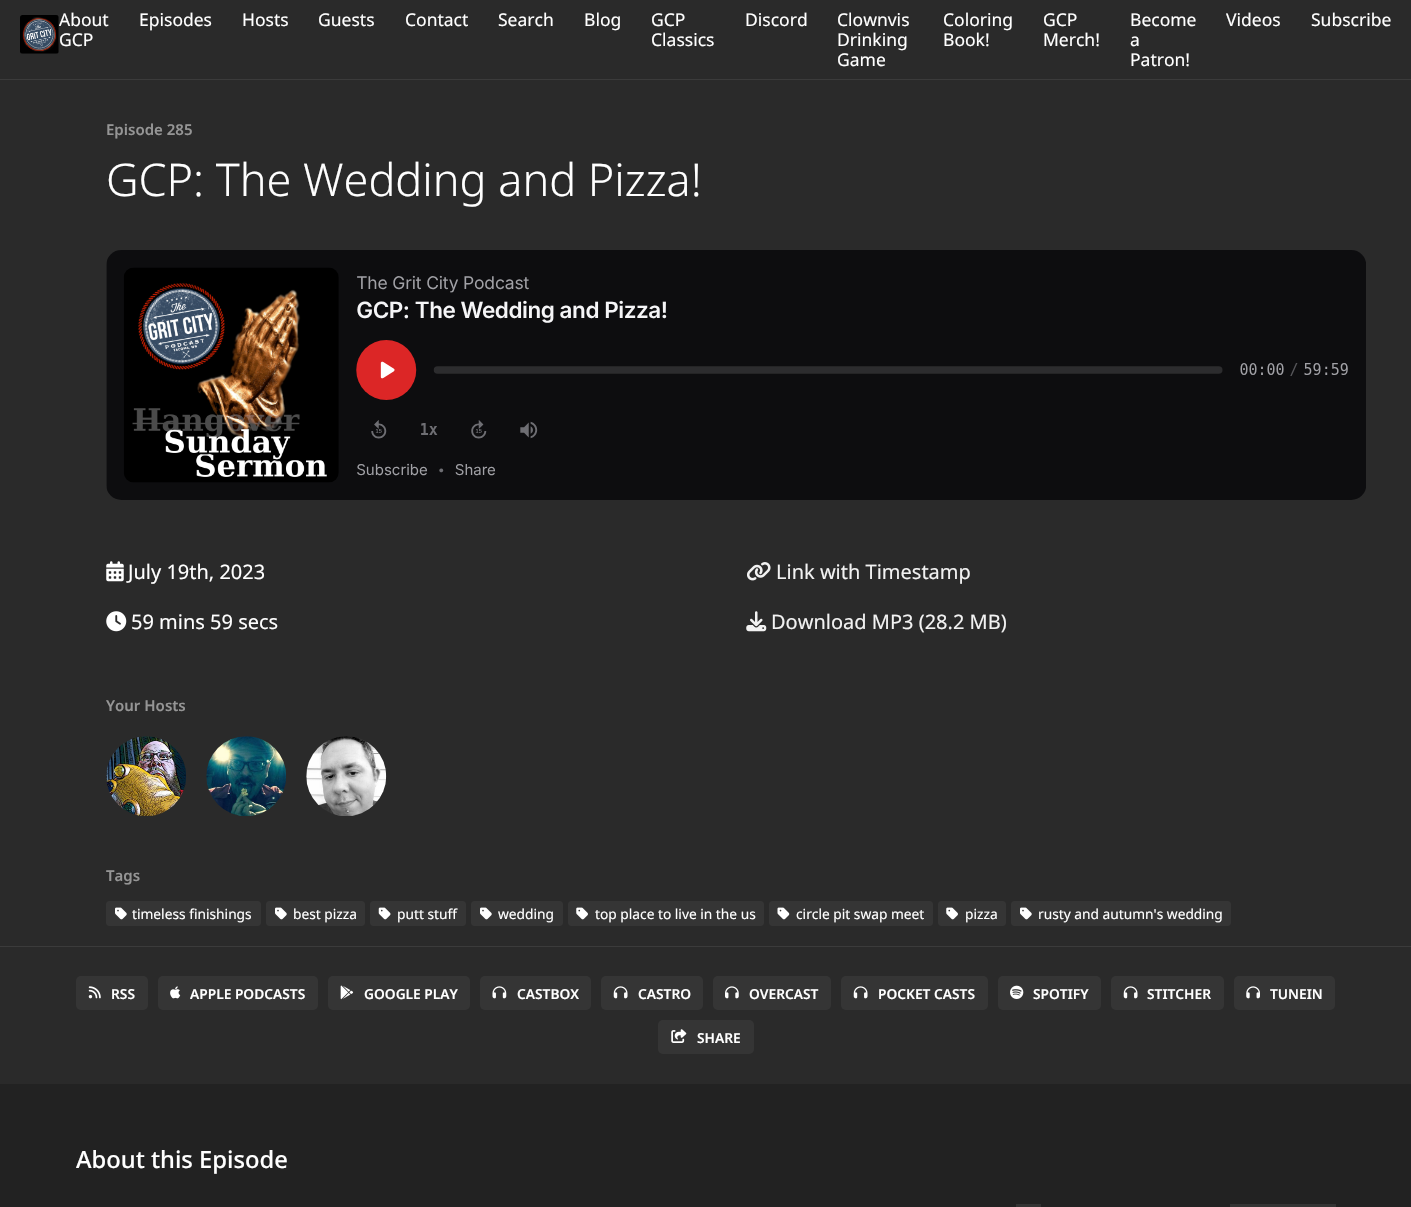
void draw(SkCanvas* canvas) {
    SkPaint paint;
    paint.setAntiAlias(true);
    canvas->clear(0xFF222222);
    paint.setColor(0xFF2A2A2A);
    canvas->drawRect(SkRect::MakeXYWH(0, 0, 1411, 79), paint);
    paint.setColor(0xFF3B3B3B);
    canvas->drawRect(SkRect::MakeXYWH(0, 79, 1411, 1), paint);
    canvas->drawImageRect(SkImages::DeferredFromEncodedData(SkData::MakeFromFileName("img1.png")), SkRect::MakeXYWH(20, 15, 39, 39), SkSamplingOptions());
    SkFont font1(fontMgr->matchFamilyStyle("Noto Sans", SkFontStyle::Normal()), 17.5f);
    font1.setSubpixel(true);
    paint.setColor(0xFFFFFFFF);
    canvas->drawString("About", 59, 26, font1, paint);
    canvas->drawString("GCP", 59, 46, font1, paint);
    canvas->drawString("Episodes", 139, 26, font1, paint);
    canvas->drawString("Hosts", 242, 26, font1, paint);
    canvas->drawString("Guests", 318, 26, font1, paint);
    canvas->drawString("Contact", 405, 26, font1, paint);
    canvas->drawString("Search", 498, 26, font1, paint);
    canvas->drawString("Blog", 584, 26, font1, paint);
    canvas->drawString("GCP", 651, 26, font1, paint);
    canvas->drawString("Classics", 651, 46, font1, paint);
    canvas->drawString("Discord", 745, 26, font1, paint);
    canvas->drawString("Clownvis", 837, 26, font1, paint);
    canvas->drawString("Drinking", 837, 46, font1, paint);
    canvas->drawString("Game", 837, 66, font1, paint);
    canvas->drawString("Coloring", 943, 26, font1, paint);
    canvas->drawString("Book!", 943, 46, font1, paint);
    canvas->drawString("GCP", 1043, 26, font1, paint);
    canvas->drawString("Merch!", 1043, 46, font1, paint);
    canvas->drawString("Become", 1130, 26, font1, paint);
    canvas->drawString("a", 1130, 46, font1, paint);
    canvas->drawString("Patron!", 1130, 66, font1, paint);
    canvas->drawString("Videos", 1226, 26, font1, paint);
    canvas->drawString("Subscribe", 1311, 26, font1, paint);
    paint.setColor(0xFF2A2A2A);
    canvas->drawRect(SkRect::MakeXYWH(0, 80, 1411, 866), paint);
    SkFont font2(fontMgr->matchFamilyStyle("Noto Sans", SkFontStyle(600, SkFontStyle::kNormal_Width, SkFontStyle::kUpright_Slant)), 15);
    font2.setSubpixel(true);
    paint.setColor(0xFF959595);
    canvas->drawString("Episode 285", 106, 135, font2, paint);
    SkFont font3(fontMgr->matchFamilyStyle("Noto Sans", SkFontStyle(300, SkFontStyle::kNormal_Width, SkFontStyle::kUpright_Slant)), 45);
    font3.setSubpixel(true);
    paint.setColor(0xFFFFFFFF);
    canvas->drawString("GCP: The Wedding and Pizza!", 106, 196, font3, paint);
    canvas->drawImageRect(SkImages::DeferredFromEncodedData(SkData::MakeFromFileName("img2.png")), SkRect::MakeXYWH(106, 250, 1260, 250), SkSamplingOptions());
    canvas->drawImageRect(SkImages::DeferredFromEncodedData(SkData::MakeFromFileName("img3.png")), SkRect::MakeXYWH(106, 561, 18, 21), SkSamplingOptions());
    SkFont font4(fontMgr->matchFamilyStyle("Noto Sans", SkFontStyle::Normal()), 20);
    font4.setSubpixel(true);
    canvas->drawString("July 19th, 2023", 128, 579, font4, paint);
    canvas->drawImageRect(SkImages::DeferredFromEncodedData(SkData::MakeFromFileName("img4.png")), SkRect::MakeXYWH(106, 611, 21, 21), SkSamplingOptions());
    canvas->drawString("59 mins 59 secs", 131, 629, font4, paint);
    canvas->drawImageRect(SkImages::DeferredFromEncodedData(SkData::MakeFromFileName("img5.png")), SkRect::MakeXYWH(747, 562, 24, 19), SkSamplingOptions());
    paint.setColor(0xFFF2F2F2);
    canvas->drawString("Link with Timestamp", 776, 579, font4, paint);
    canvas->drawImageRect(SkImages::DeferredFromEncodedData(SkData::MakeFromFileName("img6.png")), SkRect::MakeXYWH(746, 611, 21, 21), SkSamplingOptions());
    canvas->drawString("Download MP3 (28.2 MB)", 771, 629, font4, paint);
    paint.setColor(0xFF959595);
    canvas->drawString("Your Hosts", 106, 711, font2, paint);
    canvas->drawImageRect(SkImages::DeferredFromEncodedData(SkData::MakeFromFileName("img7.png")), SkRect::MakeXYWH(106, 736, 80, 80), SkSamplingOptions());
    canvas->drawImageRect(SkImages::DeferredFromEncodedData(SkData::MakeFromFileName("img8.png")), SkRect::MakeXYWH(206, 736, 80, 80), SkSamplingOptions());
    canvas->drawImageRect(SkImages::DeferredFromEncodedData(SkData::MakeFromFileName("img9.png")), SkRect::MakeXYWH(306, 736, 81, 80), SkSamplingOptions());
    canvas->drawString("Tags", 106, 881, font2, paint);
    paint.setColor(0xFF353535);
    canvas->drawRoundRect(SkRect::MakeXYWH(106, 901, 155, 25), 4, 4, paint);
    canvas->drawImageRect(SkImages::DeferredFromEncodedData(SkData::MakeFromFileName("img10.png")), SkRect::MakeXYWH(115, 907, 12, 13), SkSamplingOptions());
    SkFont font5(fontMgr->matchFamilyStyle("Noto Sans", SkFontStyle::Normal()), 13.75f);
    font5.setSubpixel(true);
    paint.setColor(0xFFFFFFFF);
    canvas->drawString("timeless finishings", 132, 919, font5, paint);
    paint.setColor(0xFF353535);
    canvas->drawRoundRect(SkRect::MakeXYWH(266, 901, 99, 25), 4, 4, paint);
    canvas->drawImageRect(SkImages::DeferredFromEncodedData(SkData::MakeFromFileName("img10.png")), SkRect::MakeXYWH(275, 907, 12, 13), SkSamplingOptions());
    paint.setColor(0xFFFFFFFF);
    canvas->drawString("best pizza", 293, 919, font5, paint);
    paint.setColor(0xFF353535);
    canvas->drawRoundRect(SkRect::MakeXYWH(370, 901, 96, 25), 4, 4, paint);
    canvas->drawImageRect(SkImages::DeferredFromEncodedData(SkData::MakeFromFileName("img11.png")), SkRect::MakeXYWH(378, 907, 13, 13), SkSamplingOptions());
    paint.setColor(0xFFFFFFFF);
    canvas->drawString("putt stuff", 397, 919, font5, paint);
    paint.setColor(0xFF353535);
    canvas->drawRoundRect(SkRect::MakeXYWH(471, 901, 92, 25), 4, 4, paint);
    canvas->drawImageRect(SkImages::DeferredFromEncodedData(SkData::MakeFromFileName("img10.png")), SkRect::MakeXYWH(480, 907, 12, 13), SkSamplingOptions());
    paint.setColor(0xFFFFFFFF);
    canvas->drawString("wedding", 498, 919, font5, paint);
    paint.setColor(0xFF353535);
    canvas->drawRoundRect(SkRect::MakeXYWH(568, 901, 196, 25), 4, 4, paint);
    canvas->drawImageRect(SkImages::DeferredFromEncodedData(SkData::MakeFromFileName("img12.png")), SkRect::MakeXYWH(576, 907, 12, 13), SkSamplingOptions());
    paint.setColor(0xFFFFFFFF);
    canvas->drawString("top place to live in the us", 595, 919, font5, paint);
    paint.setColor(0xFF353535);
    canvas->drawRoundRect(SkRect::MakeXYWH(769, 901, 164, 25), 4, 4, paint);
    canvas->drawImageRect(SkImages::DeferredFromEncodedData(SkData::MakeFromFileName("img13.png")), SkRect::MakeXYWH(777, 907, 13, 13), SkSamplingOptions());
    paint.setColor(0xFFFFFFFF);
    canvas->drawString("circle pit swap meet", 796, 919, font5, paint);
    paint.setColor(0xFF353535);
    canvas->drawRoundRect(SkRect::MakeXYWH(938, 901, 68, 25), 4, 4, paint);
    canvas->drawImageRect(SkImages::DeferredFromEncodedData(SkData::MakeFromFileName("img12.png")), SkRect::MakeXYWH(946, 907, 12, 13), SkSamplingOptions());
    paint.setColor(0xFFFFFFFF);
    canvas->drawString("pizza", 965, 919, font5, paint);
    paint.setColor(0xFF353535);
    canvas->drawRoundRect(SkRect::MakeXYWH(1011, 901, 220, 25), 4, 4, paint);
    canvas->drawImageRect(SkImages::DeferredFromEncodedData(SkData::MakeFromFileName("img10.png")), SkRect::MakeXYWH(1020, 907, 12, 13), SkSamplingOptions());
    paint.setColor(0xFFFFFFFF);
    canvas->drawString("rusty and autumn's wedding", 1038, 919, font5, paint);
    paint.setColor(0xFF2A2A2A);
    canvas->drawRect(SkRect::MakeXYWH(0, 947, 1411, 137), paint);
    paint.setColor(0xFF3B3B3B);
    canvas->drawRect(SkRect::MakeXYWH(0, 946, 1411, 1), paint);
    paint.setColor(0xFF353535);
    canvas->drawRoundRect(SkRect::MakeXYWH(76, 976, 72, 34), 5, 5, paint);
    canvas->drawImageRect(SkImages::DeferredFromEncodedData(SkData::MakeFromFileName("img14.png")), SkRect::MakeXYWH(88, 986, 13, 13), SkSamplingOptions());
    SkFont font6(fontMgr->matchFamilyStyle("Noto Sans", SkFontStyle(600, SkFontStyle::kNormal_Width, SkFontStyle::kUpright_Slant)), 13.75f);
    font6.setSubpixel(true);
    paint.setColor(0xFFFFFFFF);
    canvas->drawString("RSS", 111, 999, font6, paint);
    paint.setColor(0xFF353535);
    canvas->drawRoundRect(SkRect::MakeXYWH(158, 976, 160, 34), 5, 5, paint);
    canvas->drawImageRect(SkImages::DeferredFromEncodedData(SkData::MakeFromFileName("img15.png")), SkRect::MakeXYWH(170, 986, 11, 13), SkSamplingOptions());
    paint.setColor(0xFFFFFFFF);
    canvas->drawString("APPLE PODCASTS", 190, 999, font6, paint);
    paint.setColor(0xFF353535);
    canvas->drawRoundRect(SkRect::MakeXYWH(328, 976, 142, 34), 5, 5, paint);
    canvas->drawImageRect(SkImages::DeferredFromEncodedData(SkData::MakeFromFileName("img16.png")), SkRect::MakeXYWH(340, 985, 14, 15), SkSamplingOptions());
    paint.setColor(0xFFFFFFFF);
    canvas->drawString("GOOGLE PLAY", 364, 999, font6, paint);
    paint.setColor(0xFF353535);
    canvas->drawRoundRect(SkRect::MakeXYWH(480, 976, 111, 34), 5, 5, paint);
    canvas->drawImageRect(SkImages::DeferredFromEncodedData(SkData::MakeFromFileName("img17.png")), SkRect::MakeXYWH(492, 986, 15, 13), SkSamplingOptions());
    paint.setColor(0xFFFFFFFF);
    canvas->drawString("CASTBOX", 517, 999, font6, paint);
    paint.setColor(0xFF353535);
    canvas->drawRoundRect(SkRect::MakeXYWH(601, 976, 102, 34), 5, 5, paint);
    canvas->drawImageRect(SkImages::DeferredFromEncodedData(SkData::MakeFromFileName("img18.png")), SkRect::MakeXYWH(613, 986, 15, 13), SkSamplingOptions());
    paint.setColor(0xFFFFFFFF);
    canvas->drawString("CASTRO", 638, 999, font6, paint);
    paint.setColor(0xFF353535);
    canvas->drawRoundRect(SkRect::MakeXYWH(713, 976, 118, 34), 5, 5, paint);
    canvas->drawImageRect(SkImages::DeferredFromEncodedData(SkData::MakeFromFileName("img19.png")), SkRect::MakeXYWH(725, 986, 14, 13), SkSamplingOptions());
    paint.setColor(0xFFFFFFFF);
    canvas->drawString("OVERCAST", 749, 999, font6, paint);
    paint.setColor(0xFF353535);
    canvas->drawRoundRect(SkRect::MakeXYWH(841, 976, 147, 34), 5, 5, paint);
    canvas->drawImageRect(SkImages::DeferredFromEncodedData(SkData::MakeFromFileName("img18.png")), SkRect::MakeXYWH(853, 986, 15, 13), SkSamplingOptions());
    paint.setColor(0xFFFFFFFF);
    canvas->drawString("POCKET CASTS", 878, 999, font6, paint);
    paint.setColor(0xFF353535);
    canvas->drawRoundRect(SkRect::MakeXYWH(998, 976, 103, 34), 5, 5, paint);
    canvas->drawImageRect(SkImages::DeferredFromEncodedData(SkData::MakeFromFileName("img20.png")), SkRect::MakeXYWH(1010, 985, 14, 14), SkSamplingOptions());
    paint.setColor(0xFFFFFFFF);
    canvas->drawString("SPOTIFY", 1033, 999, font6, paint);
    paint.setColor(0xFF353535);
    canvas->drawRoundRect(SkRect::MakeXYWH(1111, 976, 113, 34), 5, 5, paint);
    canvas->drawImageRect(SkImages::DeferredFromEncodedData(SkData::MakeFromFileName("img18.png")), SkRect::MakeXYWH(1123, 986, 15, 13), SkSamplingOptions());
    paint.setColor(0xFFFFFFFF);
    canvas->drawString("STITCHER", 1147, 999, font6, paint);
    paint.setColor(0xFF353535);
    canvas->drawRoundRect(SkRect::MakeXYWH(1234, 976, 101, 34), 5, 5, paint);
    canvas->drawImageRect(SkImages::DeferredFromEncodedData(SkData::MakeFromFileName("img21.png")), SkRect::MakeXYWH(1246, 986, 14, 13), SkSamplingOptions());
    paint.setColor(0xFFFFFFFF);
    canvas->drawString("TUNEIN", 1270, 999, font6, paint);
    paint.setColor(0xFF353535);
    canvas->drawRoundRect(SkRect::MakeXYWH(658, 1020, 96, 34), 5, 5, paint);
    canvas->drawImageRect(SkImages::DeferredFromEncodedData(SkData::MakeFromFileName("img22.png")), SkRect::MakeXYWH(671, 1029, 16, 14), SkSamplingOptions());
    paint.setColor(0xFFFFFFFF);
    canvas->drawString("SHARE", 697, 1043, font6, paint);
    SkFont font7(fontMgr->matchFamilyStyle("Noto Sans", SkFontStyle(500, SkFontStyle::kNormal_Width, SkFontStyle::kUpright_Slant)), 23.75f);
    font7.setSubpixel(true);
    canvas->drawString("About this Episode", 76, 1168, font7, paint);
    paint.setStyle(SkPaint::kStroke_Style);
    paint.setStrokeWidth(5);
    paint.setColor(0xFF343434);
    canvas->drawRect(SkRect::MakeXYWH(1018.5f, 1206.5f, 315, 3), paint);
    paint.setStyle(SkPaint::kFill_Style);
    paint.setColor(0xFF222222);
    canvas->drawRect(SkRect::MakeXYWH(1041, 1204, 189, 3), paint);
}
